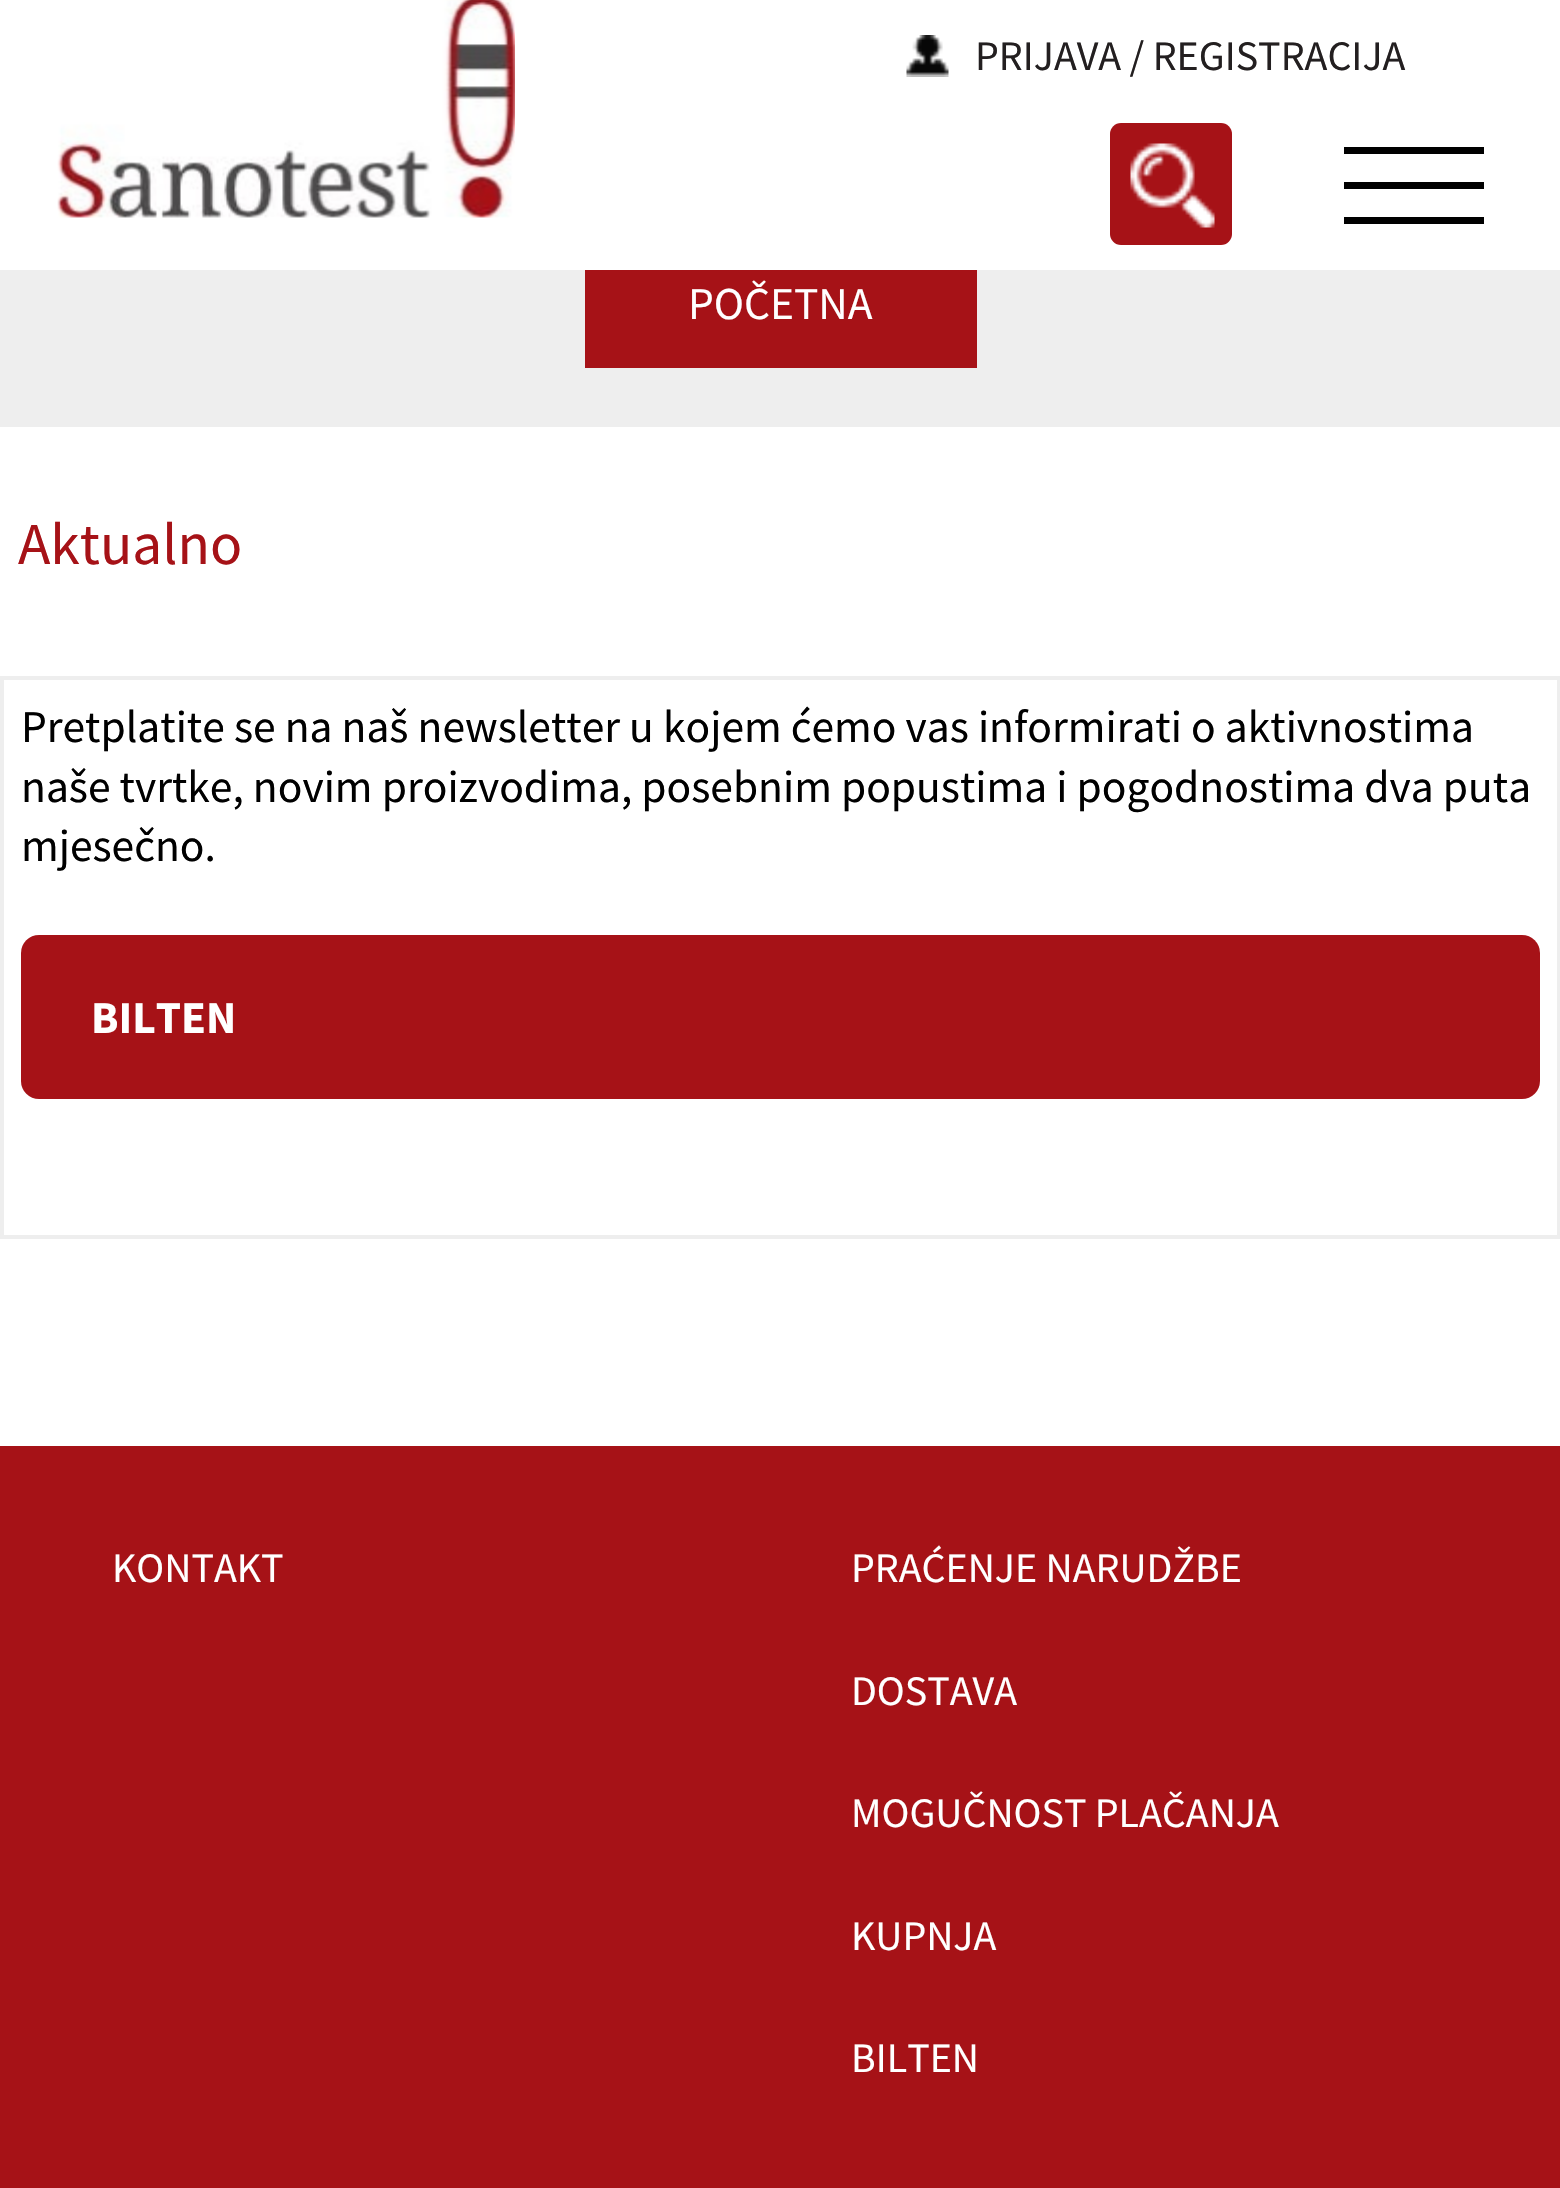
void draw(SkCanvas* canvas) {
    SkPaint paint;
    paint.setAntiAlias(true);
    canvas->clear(0xFFFFFFFF);
    canvas->drawImageRect(SkImages::DeferredFromEncodedData(SkData::MakeFromFileName("img1.png")), SkRect::MakeXYWH(57, 0, 458, 218), SkSamplingOptions());
    paint.setColor(0xFFA61217);
    canvas->drawRoundRect(SkRect::MakeXYWH(1110, 123, 122, 122), 11, 11, paint);
    canvas->drawImageRect(SkImages::DeferredFromEncodedData(SkData::MakeFromFileName("img2.png")), SkRect::MakeXYWH(1130, 143, 85, 85), SkSamplingOptions());
    paint.setColor(0xFF000000);
    canvas->drawRect(SkRect::MakeXYWH(1344, 147, 140, 7), paint);
    canvas->drawRect(SkRect::MakeXYWH(1344, 182, 140, 7), paint);
    canvas->drawRect(SkRect::MakeXYWH(1344, 217, 140, 7), paint);
    canvas->drawImageRect(SkImages::DeferredFromEncodedData(SkData::MakeFromFileName("img3.png")), SkRect::MakeXYWH(906, 35, 43, 42), SkSamplingOptions());
    SkFont font1(fontMgr->matchFamilyStyle("Source Sans Pro", SkFontStyle::Normal()), 42);
    font1.setSubpixel(true);
    paint.setColor(0xFF231F20);
    canvas->drawString("PRIJAVA / REGISTRACIJA", 975, 70, font1, paint);
    paint.setColor(0xFFEEEEEE);
    canvas->drawRect(SkRect::MakeXYWH(0, 270, 1560, 157), paint);
    paint.setColor(0xFFA61217);
    canvas->drawRect(SkRect::MakeXYWH(585, 270, 392, 98), paint);
    SkFont font2(fontMgr->matchFamilyStyle("Source Sans Pro", SkFontStyle::Normal()), 45.5f);
    font2.setSubpixel(true);
    paint.setColor(0xFFFFFFFF);
    canvas->drawString("POČETNA", 688, 319, font2, paint);
    SkFont font3(fontMgr->matchFamilyStyle("Source Sans Pro", SkFontStyle::Normal()), 59.5f);
    font3.setSubpixel(true);
    paint.setColor(0xFFA61217);
    canvas->drawString("Aktualno", 18, 564, font3, paint);
    paint.setStyle(SkPaint::kStroke_Style);
    paint.setStrokeWidth(4);
    paint.setColor(0xFFEEEEEE);
    canvas->drawRect(SkRect::MakeXYWH(2, 678, 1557, 559), paint);
    paint.setStyle(SkPaint::kFill_Style);
    paint.setColor(0xFF000000);
    canvas->drawString("Pretplatite se na naš newsletter u kojem ćemo vas informirati o aktivnostima", 21, 742, font2, paint);
    canvas->drawString("naše tvrtke, novim proizvodima, posebnim popustima i pogodnostima dva puta", 21, 802, font2, paint);
    canvas->drawString("mjesečno.", 21, 861, font2, paint);
    paint.setColor(0xFFA61217);
    canvas->drawRoundRect(SkRect::MakeXYWH(21, 935, 1519, 164), 18, 18, paint);
    SkFont font4(fontMgr->matchFamilyStyle("Source Sans Pro", SkFontStyle::Bold()), 45.5f);
    font4.setSubpixel(true);
    paint.setColor(0xFFFFFFFF);
    canvas->drawString("BILTEN", 91, 1033, font4, paint);
    paint.setColor(0xFFA61217);
    canvas->drawRect(SkRect::MakeXYWH(0, 1446, 1560, 742), paint);
    paint.setColor(0xFFFFFFFF);
    canvas->drawString("KONTAKT", 112, 1582, font1, paint);
    canvas->drawString("PRAĆENJE NARUDŽBE", 851, 1582, font1, paint);
    canvas->drawString("DOSTAVA", 851, 1705, font1, paint);
    canvas->drawString("MOGUČNOST PLAČANJA", 851, 1827, font1, paint);
    canvas->drawString("KUPNJA", 851, 1950, font1, paint);
    canvas->drawString("BILTEN", 851, 2072, font1, paint);
}
